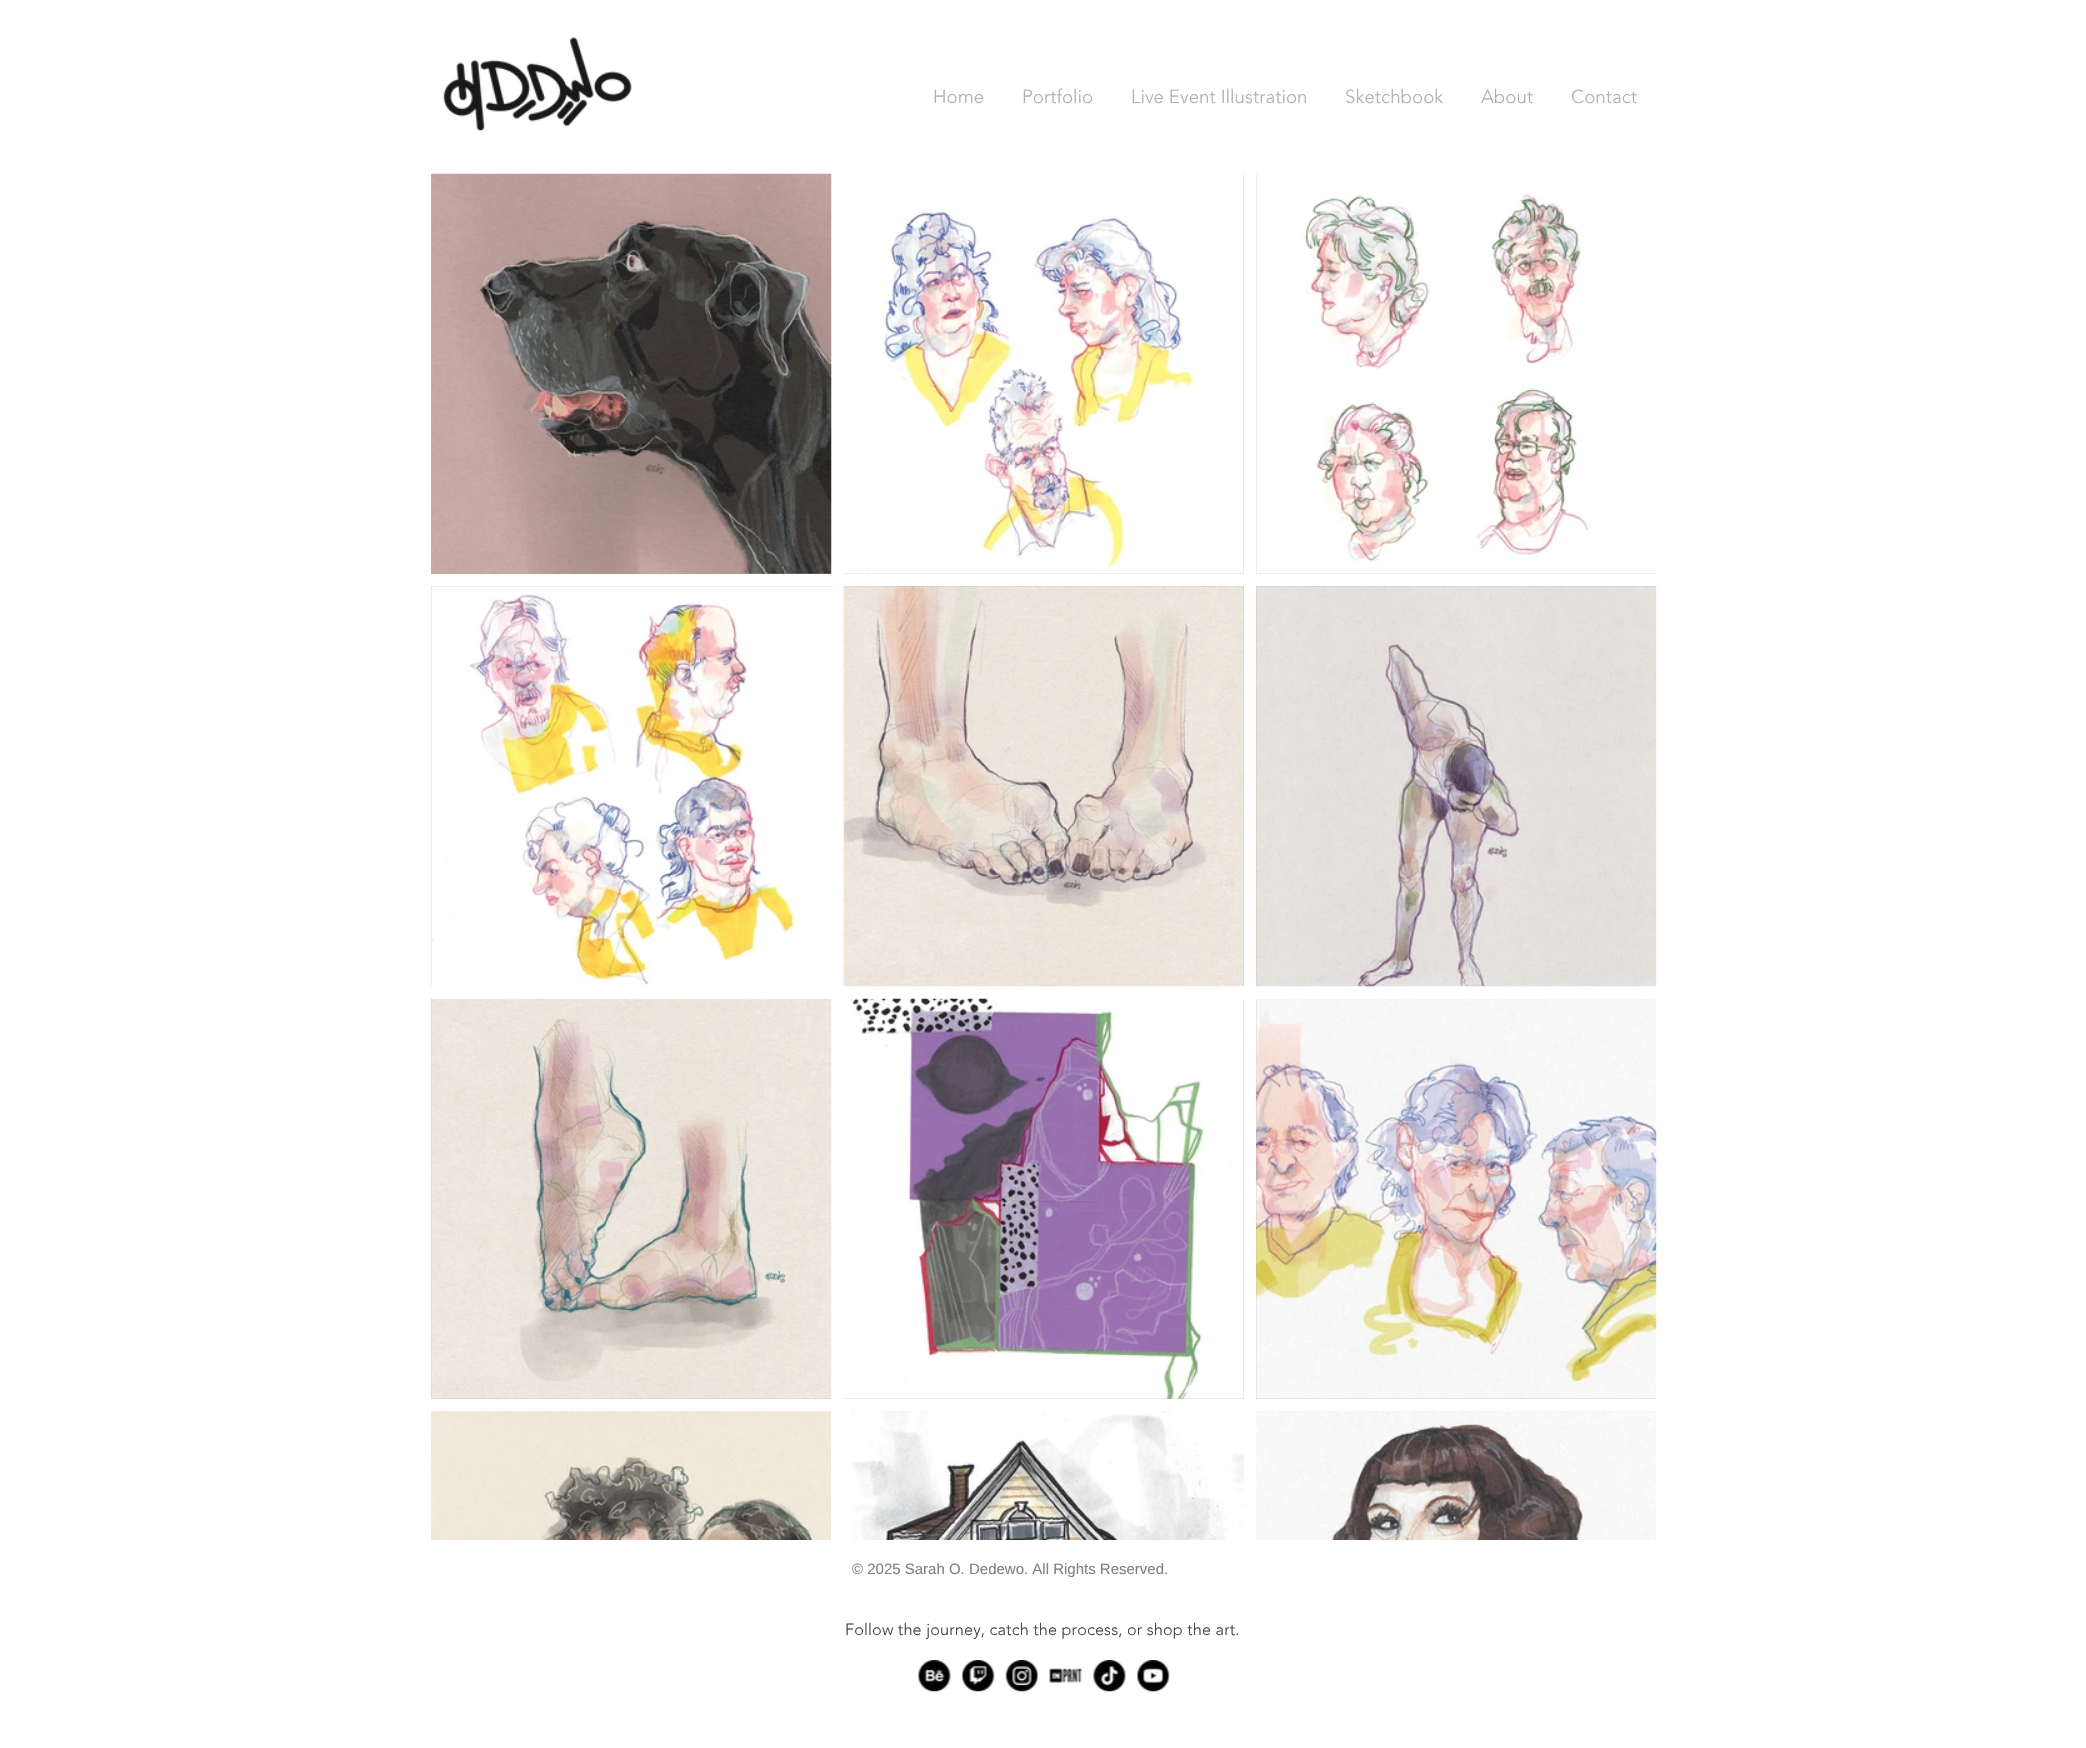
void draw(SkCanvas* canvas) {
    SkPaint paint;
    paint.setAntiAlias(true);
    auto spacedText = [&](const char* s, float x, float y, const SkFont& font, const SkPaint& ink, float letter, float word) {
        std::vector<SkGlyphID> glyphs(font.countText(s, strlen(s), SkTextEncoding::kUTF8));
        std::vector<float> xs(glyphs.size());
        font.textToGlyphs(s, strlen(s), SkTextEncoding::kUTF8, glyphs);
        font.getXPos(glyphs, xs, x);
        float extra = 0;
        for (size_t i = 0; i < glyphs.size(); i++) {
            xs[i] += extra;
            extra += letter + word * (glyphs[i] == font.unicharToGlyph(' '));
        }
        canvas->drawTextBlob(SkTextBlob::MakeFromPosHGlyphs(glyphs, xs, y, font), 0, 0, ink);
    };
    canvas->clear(0xFFFFFFFF);
    canvas->drawImageRect(SkImages::DeferredFromEncodedData(SkData::MakeFromFileName("img1.png")), SkRect::MakeXYWH(443, 37, 189, 95), SkSamplingOptions());
    SkFont font1(fontMgr->matchFamilyStyle("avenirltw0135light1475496", SkFontStyle(300, SkFontStyle::kNormal_Width, SkFontStyle::kUpright_Slant)), 18.75f);
    font1.setSubpixel(true);
    paint.setColor(0xFFAFAFAF);
    canvas->drawString("Home", 933, 103, font1, paint);
    canvas->drawString("Portfolio", 1022, 103, font1, paint);
    canvas->drawString("Live Event Illustration", 1131, 103, font1, paint);
    canvas->drawString("Sketchbook", 1345, 103, font1, paint);
    canvas->drawString("About", 1481, 103, font1, paint);
    canvas->drawString("Contact", 1571, 103, font1, paint);
    canvas->drawRect(SkRect::MakeXYWH(431, 174, 400, 400), paint);
    canvas->drawImageRect(SkImages::DeferredFromEncodedData(SkData::MakeFromFileName("img2.png")), SkRect::MakeXYWH(431, 173, 401, 401), SkSamplingOptions());
    canvas->drawRect(SkRect::MakeXYWH(844, 174, 400, 400), paint);
    canvas->drawImageRect(SkImages::DeferredFromEncodedData(SkData::MakeFromFileName("img3.png")), SkRect::MakeXYWH(844, 174, 400, 400), SkSamplingOptions());
    canvas->drawRect(SkRect::MakeXYWH(1256, 174, 400, 400), paint);
    canvas->drawImageRect(SkImages::DeferredFromEncodedData(SkData::MakeFromFileName("img4.png")), SkRect::MakeXYWH(1256, 174, 400, 400), SkSamplingOptions());
    canvas->drawRect(SkRect::MakeXYWH(431, 586, 400, 400), paint);
    canvas->drawImageRect(SkImages::DeferredFromEncodedData(SkData::MakeFromFileName("img5.png")), SkRect::MakeXYWH(431, 586, 400, 400), SkSamplingOptions());
    canvas->drawRect(SkRect::MakeXYWH(844, 586, 400, 400), paint);
    canvas->drawImageRect(SkImages::DeferredFromEncodedData(SkData::MakeFromFileName("img6.png")), SkRect::MakeXYWH(843, 586, 401, 401), SkSamplingOptions());
    canvas->drawRect(SkRect::MakeXYWH(1256, 586, 400, 400), paint);
    canvas->drawImageRect(SkImages::DeferredFromEncodedData(SkData::MakeFromFileName("img7.png")), SkRect::MakeXYWH(1256, 586, 401, 401), SkSamplingOptions());
    canvas->drawRect(SkRect::MakeXYWH(431, 999, 400, 400), paint);
    canvas->drawImageRect(SkImages::DeferredFromEncodedData(SkData::MakeFromFileName("img8.png")), SkRect::MakeXYWH(431, 998, 401, 401), SkSamplingOptions());
    canvas->drawRect(SkRect::MakeXYWH(844, 999, 400, 400), paint);
    canvas->drawImageRect(SkImages::DeferredFromEncodedData(SkData::MakeFromFileName("img9.png")), SkRect::MakeXYWH(844, 998, 400, 401), SkSamplingOptions());
    canvas->drawRect(SkRect::MakeXYWH(1256, 999, 400, 400), paint);
    canvas->drawImageRect(SkImages::DeferredFromEncodedData(SkData::MakeFromFileName("img10.png")), SkRect::MakeXYWH(1256, 999, 401, 400), SkSamplingOptions());
    canvas->drawImageRect(SkImages::DeferredFromEncodedData(SkData::MakeFromFileName("img11.png")), SkRect::MakeXYWH(431, 1411, 400, 129), SkSamplingOptions());
    canvas->drawImageRect(SkImages::DeferredFromEncodedData(SkData::MakeFromFileName("img12.png")), SkRect::MakeXYWH(844, 1411, 400, 129), SkSamplingOptions());
    canvas->drawImageRect(SkImages::DeferredFromEncodedData(SkData::MakeFromFileName("img13.png")), SkRect::MakeXYWH(1256, 1411, 400, 129), SkSamplingOptions());
    SkFont font2(fontMgr->matchFamilyStyle("Liberation Sans", SkFontStyle::Normal()), 15);
    font2.setSubpixel(true);
    paint.setColor(0xFF808080);
    canvas->drawString("© 2025 Sarah O. Dedewo. All Rights Reserved.", 852, 1574, font2, paint);
    SkFont font3(fontMgr->matchFamilyStyle("avenirltw0135light1475496", SkFontStyle(300, SkFontStyle::kNormal_Width, SkFontStyle::kUpright_Slant)), 16.25f);
    font3.setSubpixel(true);
    paint.setColor(0xFF414141);
    spacedText("Follow the journey, catch the process, or shop the art.", 845, 1635, font3, paint, 0.15f, 0);
    canvas->drawImageRect(SkImages::DeferredFromEncodedData(SkData::MakeFromFileName("img14.png")), SkRect::MakeXYWH(918, 1660, 33, 32), SkSamplingOptions());
    canvas->drawImageRect(SkImages::DeferredFromEncodedData(SkData::MakeFromFileName("img15.png")), SkRect::MakeXYWH(962, 1660, 33, 32), SkSamplingOptions());
    canvas->drawImageRect(SkImages::DeferredFromEncodedData(SkData::MakeFromFileName("img16.png")), SkRect::MakeXYWH(1005, 1660, 33, 32), SkSamplingOptions());
    canvas->drawImageRect(SkImages::DeferredFromEncodedData(SkData::MakeFromFileName("img17.png")), SkRect::MakeXYWH(1049, 1668, 33, 15), SkSamplingOptions());
    canvas->drawImageRect(SkImages::DeferredFromEncodedData(SkData::MakeFromFileName("img18.png")), SkRect::MakeXYWH(1093, 1660, 33, 32), SkSamplingOptions());
    canvas->drawImageRect(SkImages::DeferredFromEncodedData(SkData::MakeFromFileName("img19.png")), SkRect::MakeXYWH(1137, 1660, 33, 32), SkSamplingOptions());
}
